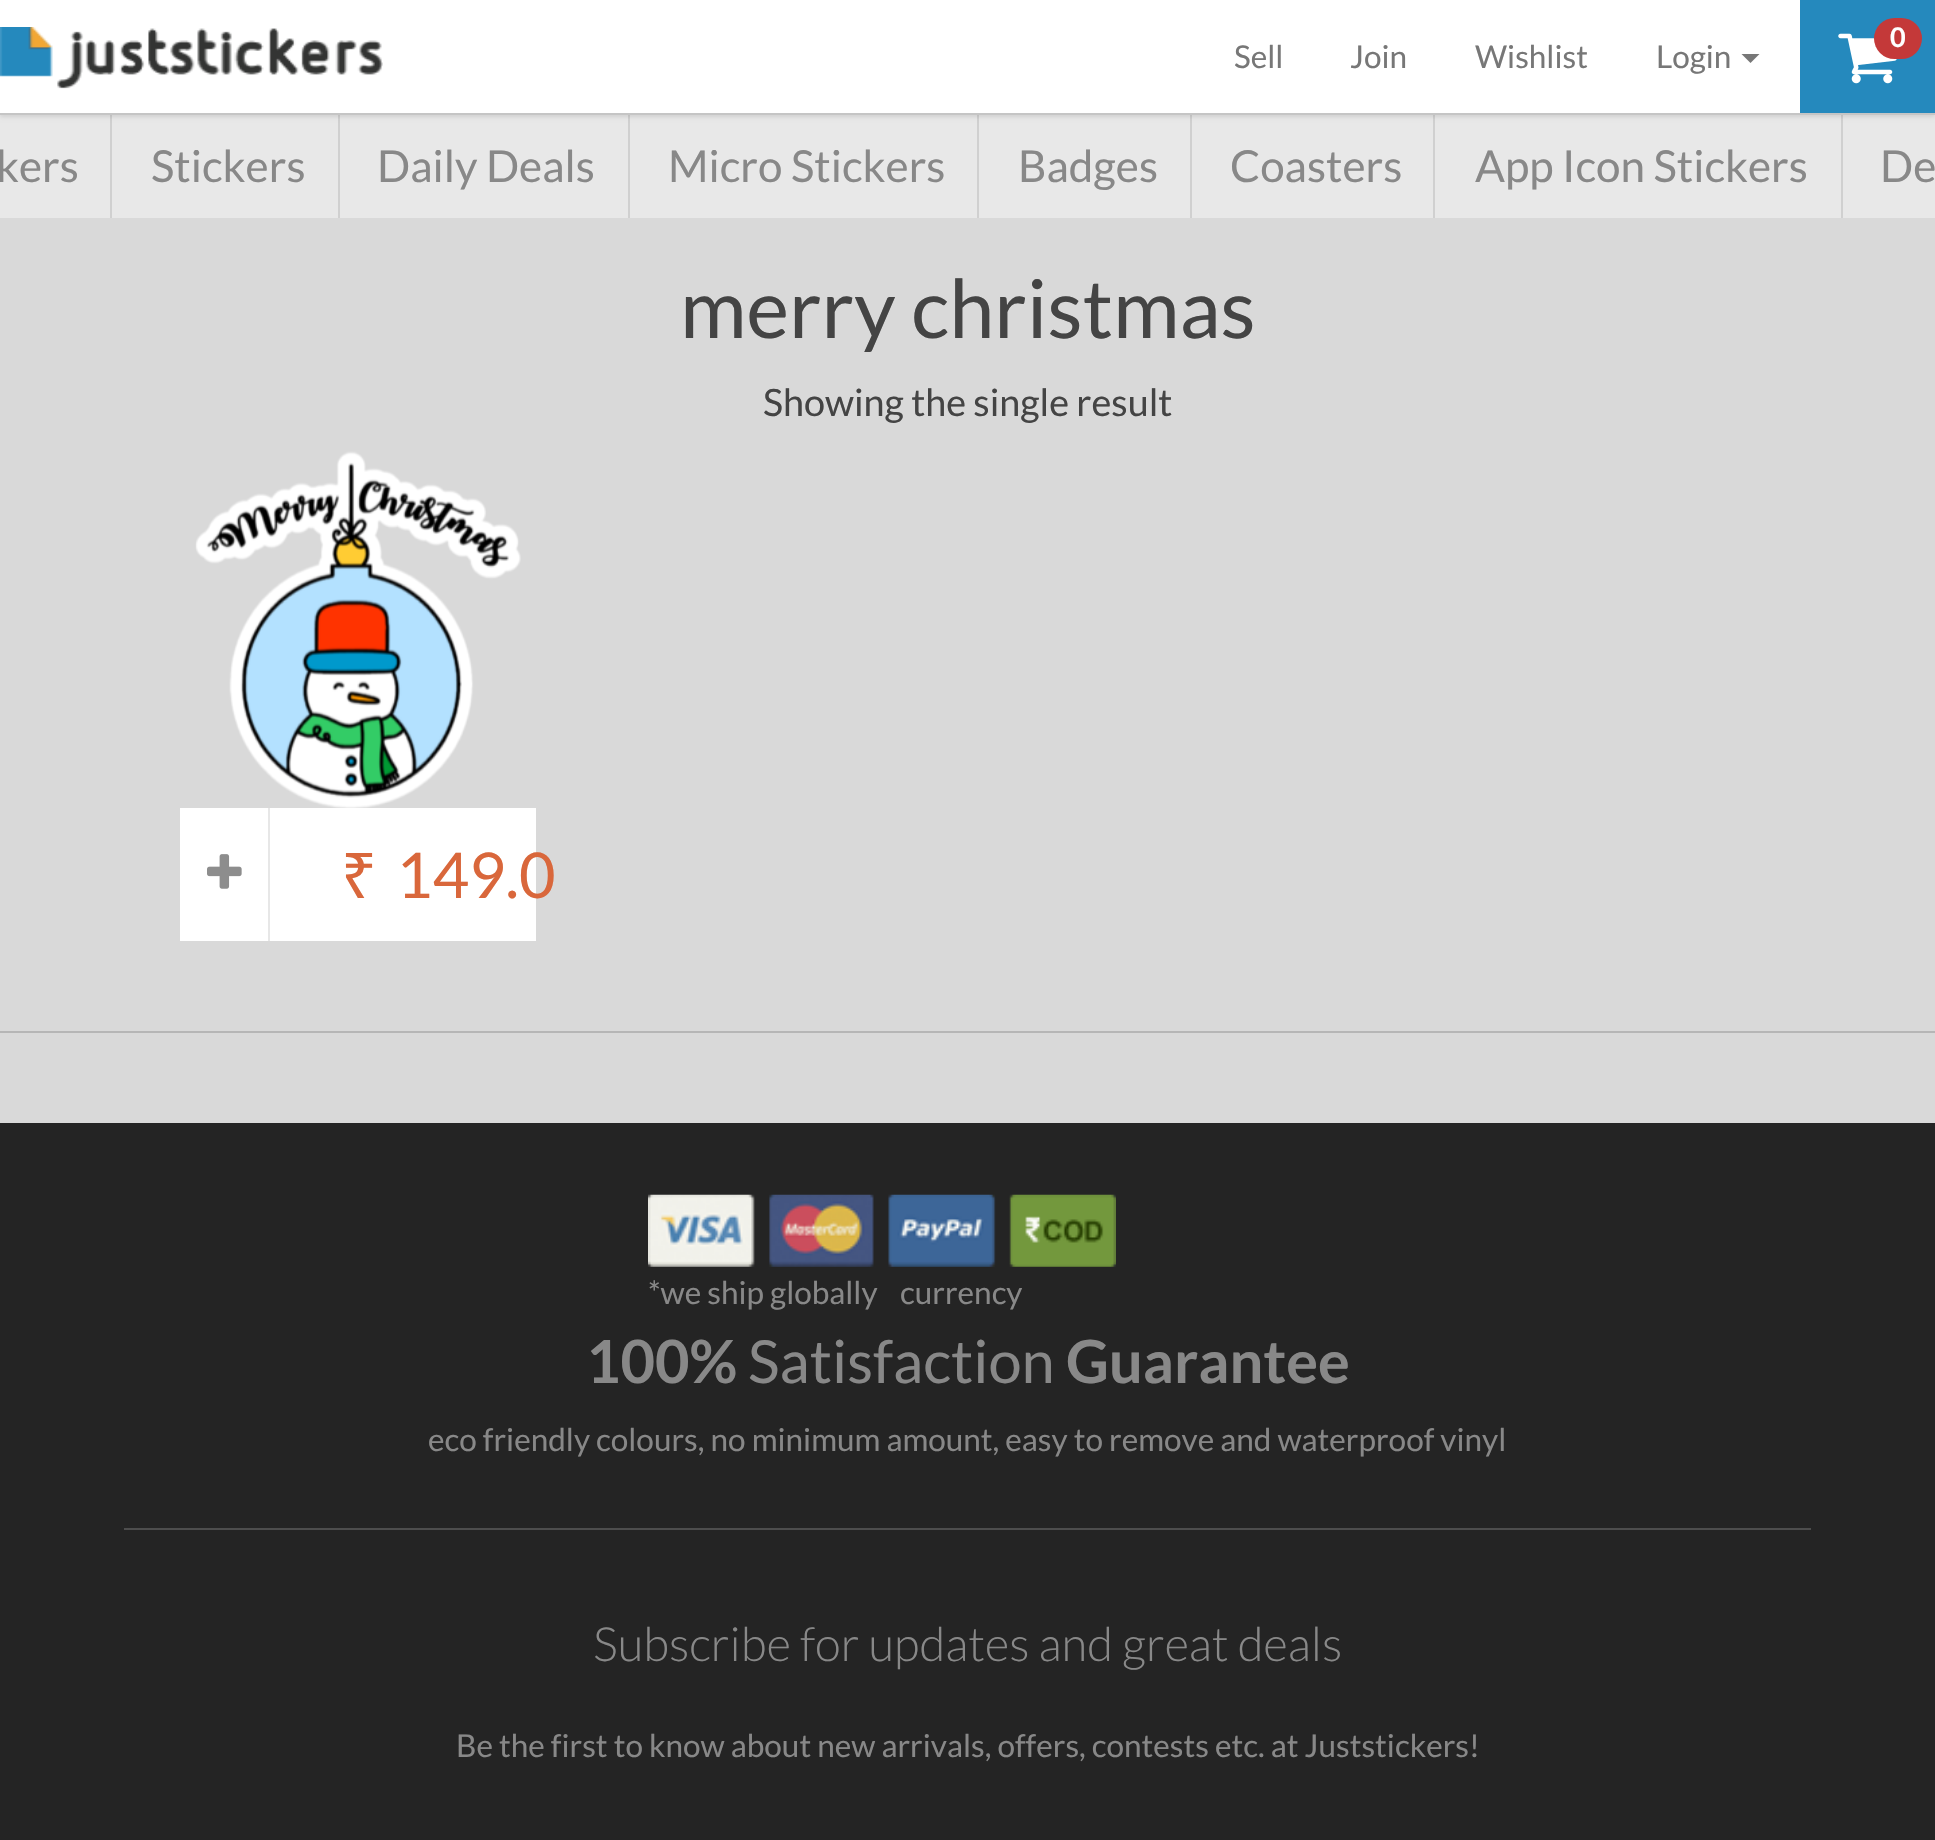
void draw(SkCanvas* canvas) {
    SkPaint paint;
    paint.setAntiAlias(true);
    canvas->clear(0xFFD9D9D9);
    paint.setColor(0xFFE8E8E8);
    canvas->drawRect(SkRect::MakeXYWH(0, 115, 1935, 103), paint);
    paint.setColor(0xFFD0D0D0);
    canvas->drawRect(SkRect::MakeXYWH(110, 113, 2, 105), paint);
    canvas->drawRect(SkRect::MakeXYWH(338, 113, 2, 105), paint);
    canvas->drawRect(SkRect::MakeXYWH(628, 113, 2, 105), paint);
    canvas->drawRect(SkRect::MakeXYWH(977, 113, 2, 105), paint);
    canvas->drawRect(SkRect::MakeXYWH(1190, 113, 2, 105), paint);
    canvas->drawRect(SkRect::MakeXYWH(1433, 113, 2, 105), paint);
    canvas->drawRect(SkRect::MakeXYWH(1841, 113, 2, 105), paint);
    paint.setColor(0x1A000000);
    paint.setMaskFilter(SkMaskFilter::MakeBlur(kNormal_SkBlurStyle, 2));
    canvas->drawRect(SkRect::MakeXYWH(0, 2, 1935, 115), paint);
    paint.setMaskFilter(nullptr);
    paint.setColor(0xFFFFFFFF);
    canvas->drawRect(SkRect::MakeXYWH(0, 0, 1800, 113), paint);
    paint.setColor(0xFFC5C5C5);
    canvas->drawRect(SkRect::MakeXYWH(0, 113, 1935, 2), paint);
    canvas->drawImageRect(SkImages::DeferredFromEncodedData(SkData::MakeFromFileName("img1.png")), SkRect::MakeXYWH(0, 27, 383, 62), SkSamplingOptions());
    paint.setColor(0xFF2589BD);
    canvas->drawRect(SkRect::MakeXYWH(1800, 0, 135, 113), paint);
    canvas->drawImageRect(SkImages::DeferredFromEncodedData(SkData::MakeFromFileName("img2.png")), SkRect::MakeXYWH(1838, 33, 59, 51), SkSamplingOptions());
    paint.setColor(0xFFC43939);
    canvas->drawRoundRect(SkRect::MakeXYWH(1874, 18, 48, 41), 20.5f, 20.5f, paint);
    SkFont font1(fontMgr->matchFamilyStyle("Lato", SkFontStyle::Bold()), 27);
    font1.setSubpixel(true);
    paint.setColor(0xFFFFFFFF);
    canvas->drawString("0", 1890, 47, font1, paint);
    SkFont font2(fontMgr->matchFamilyStyle("Lato", SkFontStyle::Normal()), 31.5f);
    font2.setSubpixel(true);
    paint.setColor(0xFF777777);
    canvas->drawString("Sell", 1234, 68, font2, paint);
    canvas->drawString("Join", 1350, 68, font2, paint);
    canvas->drawString("Wishlist", 1475, 68, font2, paint);
    canvas->drawString("Login", 1656, 68, font2, paint);
    canvas->drawPath(SkPathBuilder().moveTo(1741.5f, 54).lineTo(1759.5f, 54).lineTo(1750.5f, 63).close().detach(), paint);
    SkFont font3(fontMgr->matchFamilyStyle("Lato", SkFontStyle::Normal()), 44);
    font3.setSubpixel(true);
    paint.setColor(0xFF888888);
    canvas->drawString("kers", -4, 182, font3, paint);
    canvas->drawString("Stickers", 151, 182, font3, paint);
    canvas->drawString("Daily Deals", 377, 182, font3, paint);
    canvas->drawString("Micro Stickers", 668, 182, font3, paint);
    canvas->drawString("Badges", 1018, 182, font3, paint);
    canvas->drawString("Coasters", 1230, 182, font3, paint);
    canvas->drawString("App Icon Stickers", 1475, 182, font3, paint);
    canvas->drawString("De", 1880, 182, font3, paint);
    SkFont font4(fontMgr->matchFamilyStyle("Lato", SkFontStyle::Normal()), 81);
    font4.setSubpixel(true);
    paint.setColor(0xFF444444);
    canvas->drawString("merry christmas", 680, 338, font4, paint);
    SkFont font5(fontMgr->matchFamilyStyle("Lato", SkFontStyle::Normal()), 37.75f);
    font5.setSubpixel(true);
    canvas->drawString("Showing the single result", 763, 416, font5, paint);
    paint.setColor(0xFFFFFFFF);
    canvas->drawRect(SkRect::MakeXYWH(180, 808, 356, 133), paint);
    paint.setColor(0xFFE7E7E7);
    canvas->drawRect(SkRect::MakeXYWH(268, 808, 2, 133), paint);
    canvas->drawImageRect(SkImages::DeferredFromEncodedData(SkData::MakeFromFileName("img3.png")), SkRect::MakeXYWH(207, 854, 35, 35), SkSamplingOptions());
    canvas->drawImageRect(SkImages::DeferredFromEncodedData(SkData::MakeFromFileName("img4.png")), SkRect::MakeXYWH(195, 451, 326, 357), SkSamplingOptions());
    SkFont font6(fontMgr->matchFamilyStyle("Noto Sans", SkFontStyle::Normal()), 63);
    font6.setSubpixel(true);
    paint.setColor(0xFFD9673B);
    canvas->drawString("₹", 341, 898, font6, paint);
    SkFont font7(fontMgr->matchFamilyStyle("Lato", SkFontStyle::Normal()), 63);
    font7.setSubpixel(true);
    canvas->drawString("149.0", 396, 898, font7, paint);
    paint.setColor(0xFFB6B6B6);
    canvas->drawRect(SkRect::MakeXYWH(0, 1031, 1935, 2), paint);
    paint.setColor(0xFF242424);
    canvas->drawRect(SkRect::MakeXYWH(0, 1123, 1935, 717), paint);
    paint.setColor(0xFF4D4D4D);
    canvas->drawRect(SkRect::MakeXYWH(124, 1528, 1687, 2), paint);
    canvas->drawImageRect(SkImages::DeferredFromEncodedData(SkData::MakeFromFileName("img5.png")), SkRect::MakeXYWH(648, 1194, 468, 73), SkSamplingOptions());
    paint.setColor(0xFF888888);
    canvas->drawString("*we ship globally", 648, 1304, font2, paint);
    canvas->drawString("currency", 900, 1304, font2, paint);
    SkFont font8(fontMgr->matchFamilyStyle("Lato", SkFontStyle::Bold()), 59.5f);
    font8.setSubpixel(true);
    canvas->drawString("100%", 586, 1383, font8, paint);
    SkFont font9(fontMgr->matchFamilyStyle("Lato", SkFontStyle::Normal()), 59.5f);
    font9.setSubpixel(true);
    canvas->drawString("Satisfaction", 748, 1383, font9, paint);
    canvas->drawString("Guarantee", 1066, 1383, font8, paint);
    canvas->drawString("eco friendly colours, no minimum amount, easy to remove and waterproof vinyl", 428, 1451, font2, paint);
    SkFont font10(fontMgr->matchFamilyStyle("Lato", SkFontStyle(300, SkFontStyle::kNormal_Width, SkFontStyle::kUpright_Slant)), 47.25f);
    font10.setSubpixel(true);
    canvas->drawString("Subscribe for updates and great deals", 593, 1661, font10, paint);
    canvas->drawString("Be the first to know about new arrivals, offers, contests etc. at Juststickers!", 456, 1757, font2, paint);
}
